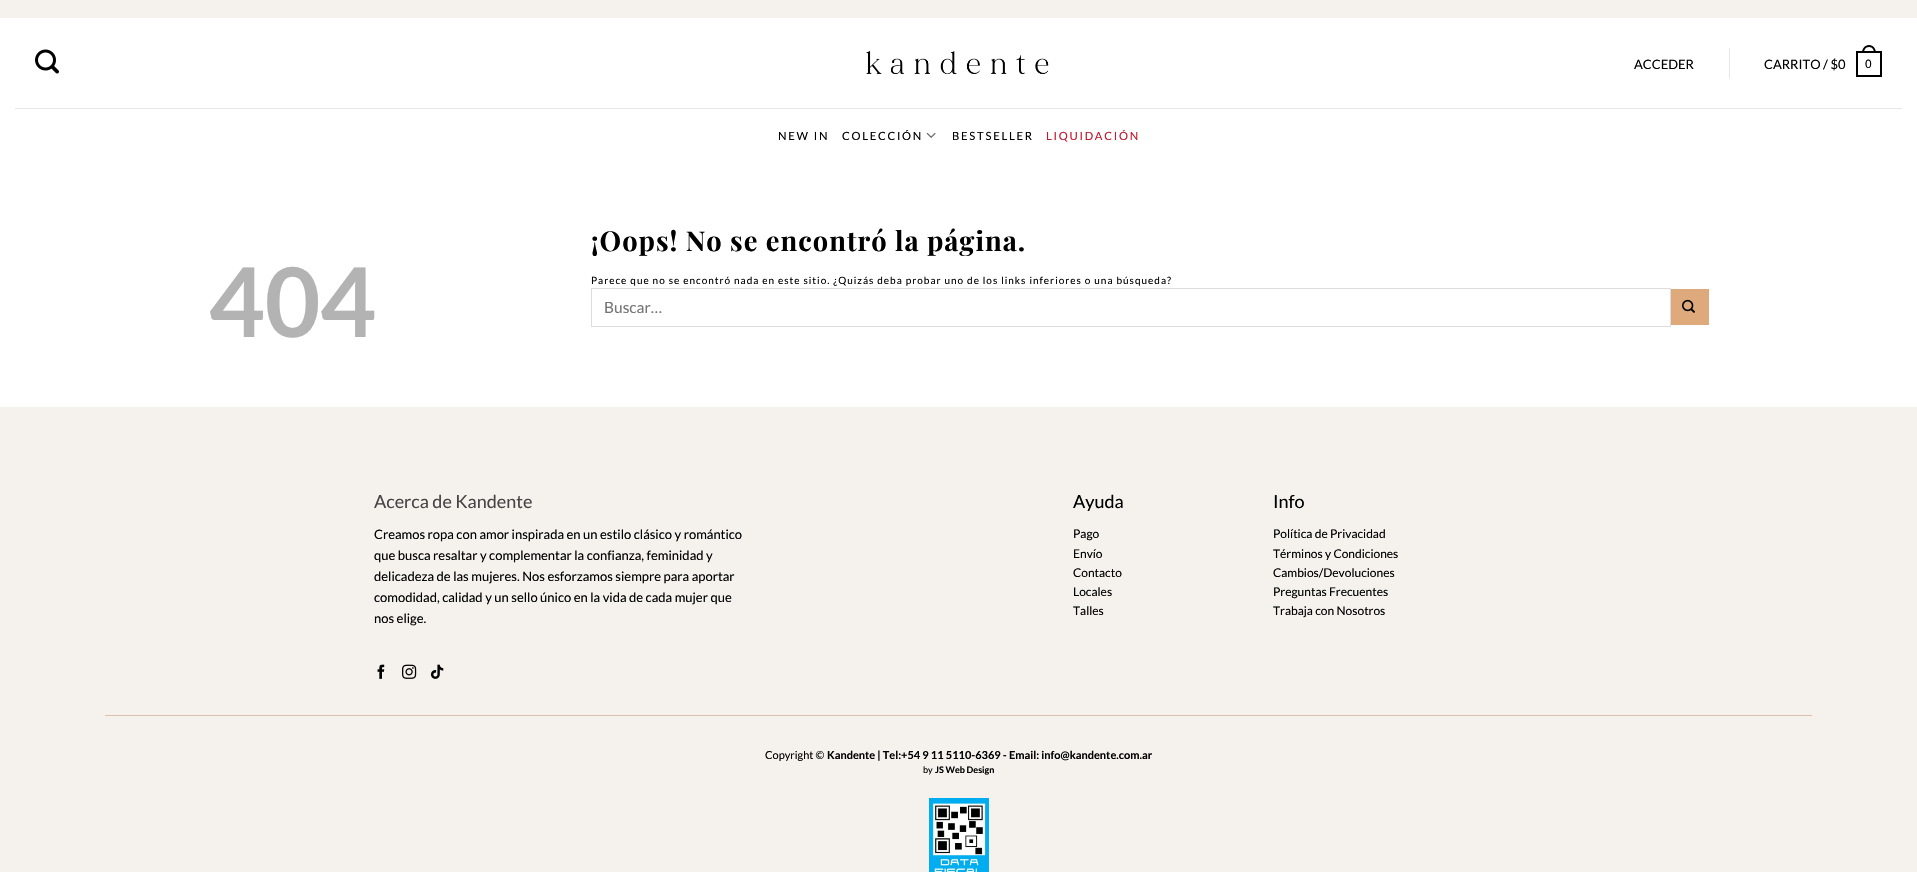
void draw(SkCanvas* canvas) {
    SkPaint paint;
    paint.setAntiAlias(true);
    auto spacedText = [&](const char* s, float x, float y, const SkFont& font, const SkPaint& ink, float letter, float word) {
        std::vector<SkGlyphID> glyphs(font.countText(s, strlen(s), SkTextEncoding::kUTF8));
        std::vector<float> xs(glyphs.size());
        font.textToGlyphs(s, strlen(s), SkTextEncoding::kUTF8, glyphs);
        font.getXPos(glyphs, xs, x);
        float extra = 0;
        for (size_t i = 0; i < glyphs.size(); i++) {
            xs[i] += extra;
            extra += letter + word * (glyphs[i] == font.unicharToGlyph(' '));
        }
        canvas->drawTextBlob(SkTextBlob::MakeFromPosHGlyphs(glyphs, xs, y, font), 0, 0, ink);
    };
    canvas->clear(0xFFFFFFFF);
    paint.setColor(0xFFF5F1EC);
    canvas->drawRect(SkRect::MakeXYWH(0, 0, 1917, 18), paint);
    canvas->drawImageRect(SkImages::DeferredFromEncodedData(SkData::MakeFromFileName("img1.png")), SkRect::MakeXYWH(35, 49, 24, 25), SkSamplingOptions());
    canvas->drawImageRect(SkImages::DeferredFromEncodedData(SkData::MakeFromFileName("img2.png")), SkRect::MakeXYWH(866, 51, 183, 23), SkSamplingOptions());
    SkFont font1(fontMgr->matchFamilyStyle("Lato", SkFontStyle::Normal()), 13);
    font1.setSubpixel(true);
    paint.setColor(0xFF000000);
    canvas->drawString("ACCEDER", 1634, 69, font1, paint);
    paint.setColor(0xFFE6E6E6);
    canvas->drawRect(SkRect::MakeXYWH(1729, 48, 1, 30), paint);
    paint.setColor(0xFF000000);
    canvas->drawString("CARRITO / $0", 1764, 69, font1, paint);
    paint.setStyle(SkPaint::kStroke_Style);
    paint.setStrokeWidth(2);
    canvas->drawRect(SkRect::MakeXYWH(1857, 52, 24, 24), paint);
    paint.setStyle(SkPaint::kFill_Style);
    canvas->drawPath(SkPathBuilder(SkPathFillType::kEvenOdd).moveTo(1869, 45).cubicTo(1873.5f, 45, 1876, 49, 1876, 53).lineTo(1862, 53).cubicTo(1862, 49, 1864.5f, 45, 1869, 45).close().moveTo(1869, 47).cubicTo(1872.5f, 47, 1874, 50, 1874, 53).lineTo(1864, 53).cubicTo(1864, 50, 1865.5f, 47, 1869, 47).close().detach(), paint);
    SkFont font2(fontMgr->matchFamilyStyle("Liberation Sans", SkFontStyle::Normal()), 12);
    font2.setSubpixel(true);
    canvas->drawString("0", 1865, 68, font2, paint);
    paint.setColor(0xFFE6E6E6);
    canvas->drawRect(SkRect::MakeXYWH(15, 108, 1887, 1), paint);
    SkFont font3(fontMgr->matchFamilyStyle("Lato", SkFontStyle::Normal()), 11.25f);
    font3.setSubpixel(true);
    paint.setColor(0xFF000000);
    spacedText("NEW IN", 778, 140, font3, paint, 1.75f, 0);
    spacedText("COLECCIÓN", 842, 140, font3, paint, 1.75f, 0);
    canvas->drawImageRect(SkImages::DeferredFromEncodedData(SkData::MakeFromFileName("img3.png")), SkRect::MakeXYWH(926, 132, 10, 6), SkSamplingOptions());
    spacedText("BESTSELLER", 952, 140, font3, paint, 1.75f, 0);
    paint.setColor(0xFFC3192D);
    spacedText("LIQUIDACIÓN", 1046, 140, font3, paint, 1.75f, 0);
    SkFont font4(fontMgr->matchFamilyStyle("Lato", SkFontStyle::Bold()), 96);
    font4.setSubpixel(true);
    paint.setColor(0xFFB3B3B3);
    canvas->drawString("404", 209, 337, font4, paint);
    SkFont font5(fontMgr->matchFamilyStyle("Playfair Display", SkFontStyle::Bold()), 27.25f);
    font5.setSubpixel(true);
    paint.setColor(0xFF000000);
    spacedText("¡Oops! No se encontró la página.", 591, 251, font5, paint, 1, 0);
    SkFont font6(fontMgr->matchFamilyStyle("Lato", SkFontStyle::Normal()), 10);
    font6.setSubpixel(true);
    spacedText("Parece que no se encontró nada en este sitio. ¿Quizás deba probar uno de los links inferiores o una búsqueda?", 591, 284, font6, paint, 1, 0);
    paint.setStyle(SkPaint::kStroke_Style);
    paint.setStrokeWidth(1);
    paint.setColor(0xFFDDDDDD);
    canvas->drawRect(SkRect::MakeXYWH(591.5f, 288.5f, 1079, 38), paint);
    SkFont font7(fontMgr->matchFamilyStyle("Lato", SkFontStyle::Normal()), 15.5f);
    font7.setSubpixel(true);
    paint.setStyle(SkPaint::kFill_Style);
    paint.setColor(0xFF757575);
    canvas->drawString("Buscar…", 604, 313, font7, paint);
    paint.setColor(0xFFDFAA7B);
    canvas->drawRect(SkRect::MakeXYWH(1671, 289, 38, 36), paint);
    canvas->drawImageRect(SkImages::DeferredFromEncodedData(SkData::MakeFromFileName("img4.png")), SkRect::MakeXYWH(1682, 299, 13, 14), SkSamplingOptions());
    paint.setColor(0xFFF5F1EC);
    canvas->drawRect(SkRect::MakeXYWH(0, 407, 1917, 465), paint);
    SkFont font8(fontMgr->matchFamilyStyle("Lato", SkFontStyle::Normal()), 18);
    font8.setSubpixel(true);
    paint.setColor(0xFF494444);
    canvas->drawString("Acerca de Kandente", 374, 508, font8, paint);
    paint.setColor(0xFF000000);
    canvas->drawString("Creamos ropa con amor inspirada en un estilo clásico y romántico", 374, 539, font1, paint);
    canvas->drawString("que busca resaltar y complementar la confianza, feminidad y", 374, 560, font1, paint);
    canvas->drawString("delicadeza de las mujeres. Nos esforzamos siempre para aportar", 374, 581, font1, paint);
    canvas->drawString("comodidad, calidad y un sello único en la vida de cada mujer que", 374, 602, font1, paint);
    canvas->drawString("nos elige.", 374, 623, font1, paint);
    canvas->drawImageRect(SkImages::DeferredFromEncodedData(SkData::MakeFromFileName("img5.png")), SkRect::MakeXYWH(377, 664, 8, 15), SkSamplingOptions());
    canvas->drawImageRect(SkImages::DeferredFromEncodedData(SkData::MakeFromFileName("img6.png")), SkRect::MakeXYWH(402, 664, 15, 15), SkSamplingOptions());
    canvas->drawImageRect(SkImages::DeferredFromEncodedData(SkData::MakeFromFileName("img7.png")), SkRect::MakeXYWH(430, 664, 14, 15), SkSamplingOptions());
    canvas->drawString("Ayuda", 1073, 508, font8, paint);
    SkFont font9(fontMgr->matchFamilyStyle("Lato", SkFontStyle::Normal()), 12);
    font9.setSubpixel(true);
    canvas->drawString("Pago", 1073, 538, font9, paint);
    canvas->drawString("Envío", 1073, 558, font9, paint);
    canvas->drawString("Contacto", 1073, 577, font9, paint);
    canvas->drawString("Locales", 1073, 596, font9, paint);
    canvas->drawString("Talles", 1073, 615, font9, paint);
    canvas->drawString("Info", 1273, 508, font8, paint);
    canvas->drawString("Política de Privacidad", 1273, 538, font9, paint);
    canvas->drawString("Términos y Condiciones", 1273, 558, font9, paint);
    canvas->drawString("Cambios/Devoluciones", 1273, 577, font9, paint);
    canvas->drawString("Preguntas Frecuentes", 1273, 596, font9, paint);
    canvas->drawString("Trabaja con Nosotros", 1273, 615, font9, paint);
    paint.setColor(0xFFDCBFAB);
    canvas->drawRect(SkRect::MakeXYWH(105, 715, 1707, 1), paint);
    SkFont font10(fontMgr->matchFamilyStyle("Lato", SkFontStyle::Normal()), 11);
    font10.setSubpixel(true);
    paint.setColor(0xFF000000);
    canvas->drawString("Copyright ©", 765, 759, font10, paint);
    SkFont font11(fontMgr->matchFamilyStyle("Lato", SkFontStyle::Bold()), 11);
    font11.setSubpixel(true);
    canvas->drawString("Kandente | Tel:+54 9 11 5110-6369 - Email: info@kandente.com.ar", 827, 759, font11, paint);
    SkFont font12(fontMgr->matchFamilyStyle("Lato", SkFontStyle::Normal()), 9);
    font12.setSubpixel(true);
    canvas->drawString("by", 923, 773, font12, paint);
    SkFont font13(fontMgr->matchFamilyStyle("Lato", SkFontStyle::Bold()), 9);
    font13.setSubpixel(true);
    canvas->drawString("JS Web Design", 935, 773, font13, paint);
    canvas->drawImageRect(SkImages::DeferredFromEncodedData(SkData::MakeFromFileName("img8.png")), SkRect::MakeXYWH(929, 798, 60, 74), SkSamplingOptions());
}
